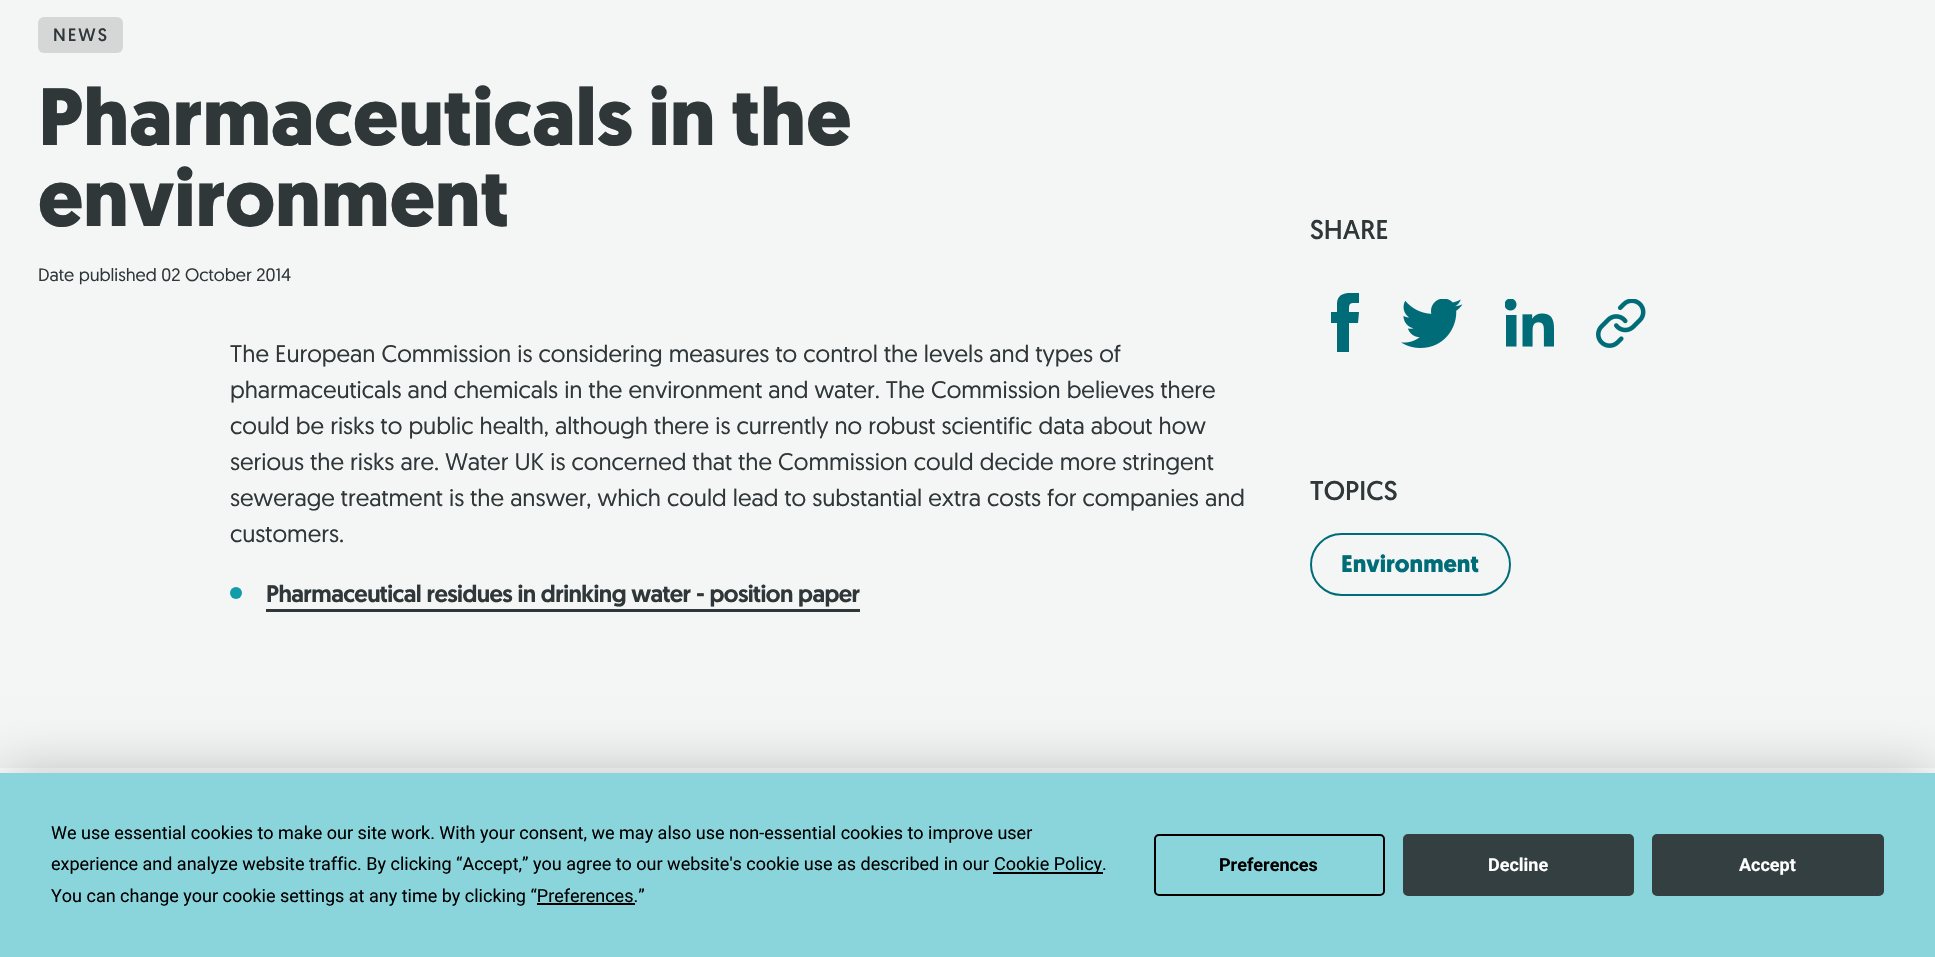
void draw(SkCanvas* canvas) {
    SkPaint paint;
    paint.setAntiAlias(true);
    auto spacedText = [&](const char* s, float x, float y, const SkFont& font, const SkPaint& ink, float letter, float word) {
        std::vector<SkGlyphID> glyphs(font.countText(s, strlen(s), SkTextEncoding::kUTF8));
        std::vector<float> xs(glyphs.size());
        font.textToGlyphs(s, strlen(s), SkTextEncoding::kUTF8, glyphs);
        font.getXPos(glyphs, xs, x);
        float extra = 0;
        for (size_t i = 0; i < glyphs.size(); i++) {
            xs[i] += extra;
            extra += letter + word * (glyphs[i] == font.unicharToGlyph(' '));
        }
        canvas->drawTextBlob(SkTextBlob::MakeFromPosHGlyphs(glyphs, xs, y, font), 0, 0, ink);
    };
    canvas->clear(0xFFFFFFFF);
    paint.setColor(0xFFF4F5F5);
    canvas->drawRect(SkRect::MakeXYWH(0, 0, 1935, 768), paint);
    paint.setColor(0xFFD5D7D7);
    canvas->drawRoundRect(SkRect::MakeXYWH(38, 17, 85, 36), 6, 6, paint);
    SkFont font1(fontMgr->matchFamilyStyle("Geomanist", SkFontStyle::Normal()), 18);
    font1.setSubpixel(true);
    paint.setColor(0xFF2F3739);
    spacedText("NEWS", 53, 41, font1, paint, 2, 0);
    SkFont font2(fontMgr->matchFamilyStyle("Geomanist", SkFontStyle::Bold()), 81);
    font2.setSubpixel(true);
    canvas->drawString("Pharmaceuticals in the", 38, 145, font2, paint);
    canvas->drawString("environment", 38, 226, font2, paint);
    SkFont font3(fontMgr->matchFamilyStyle("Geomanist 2", SkFontStyle::Normal()), 18);
    font3.setSubpixel(true);
    canvas->drawString("Date published 02 October 2014", 38, 281, font3, paint);
    SkFont font4(fontMgr->matchFamilyStyle("Geomanist 2", SkFontStyle::Normal()), 24);
    font4.setSubpixel(true);
    canvas->drawString("The European Commission is considering measures to control the levels and types of", 230, 362, font4, paint);
    canvas->drawString("pharmaceuticals and chemicals in the environment and water. The Commission believes there", 230, 398, font4, paint);
    canvas->drawString("could be risks to public health, although there is currently no robust scientific data about how", 230, 434, font4, paint);
    canvas->drawString("serious the risks are. Water UK is concerned that the Commission could decide more stringent", 230, 470, font4, paint);
    canvas->drawString("sewerage treatment is the answer, which could lead to substantial extra costs for companies and", 230, 506, font4, paint);
    canvas->drawString("customers.", 230, 542, font4, paint);
    paint.setColor(0xFF119CA9);
    canvas->drawCircle(236, 593, 6, paint);
    SkFont font5(fontMgr->matchFamilyStyle("Geomanist", SkFontStyle(500, SkFontStyle::kNormal_Width, SkFontStyle::kUpright_Slant)), 24);
    font5.setSubpixel(true);
    paint.setColor(0xFF2F3739);
    spacedText("Pharmaceutical residues in drinking water - position paper", 266, 602, font5, paint, -0.6f, 0);
    canvas->drawRect(SkRect::MakeXYWH(266, 609, 594, 3), paint);
    SkFont font6(fontMgr->matchFamilyStyle("Geomanist", SkFontStyle::Normal()), 27);
    font6.setSubpixel(true);
    canvas->drawString("SHARE", 1310, 239, font6, paint);
    canvas->save();
    canvas->clipRect(SkRect::MakeXYWH(1331, 293, 28, 60));
    paint.setColor(0xFF006C78);
    canvas->drawPath(SkPathBuilder(SkPathFillType::kEvenOdd).moveTo(1349, 312).cubicTo(1349, 302, 1349, 303, 1359, 303).lineTo(1359, 293).cubicTo(1350, 293, 1338, 291, 1337, 303).lineTo(1337, 312).lineTo(1330, 312).lineTo(1330, 323).lineTo(1337, 323).lineTo(1337, 352).lineTo(1349, 352).lineTo(1349, 323).lineTo(1358, 323).lineTo(1359, 312).close().detach(), paint);
    canvas->restore();
    canvas->drawImageRect(SkImages::DeferredFromEncodedData(SkData::MakeFromFileName("img1.png")), SkRect::MakeXYWH(1401, 299, 62, 49), SkSamplingOptions());
    canvas->drawImageRect(SkImages::DeferredFromEncodedData(SkData::MakeFromFileName("img2.png")), SkRect::MakeXYWH(1505, 299, 49, 48), SkSamplingOptions());
    canvas->drawImageRect(SkImages::DeferredFromEncodedData(SkData::MakeFromFileName("img3.png")), SkRect::MakeXYWH(1596, 299, 50, 49), SkSamplingOptions());
    paint.setColor(0xFF2F3739);
    canvas->drawString("TOPICS", 1310, 500, font6, paint);
    paint.setStyle(SkPaint::kStroke_Style);
    paint.setStrokeWidth(2);
    paint.setColor(0xFF006C78);
    canvas->drawRoundRect(SkRect::MakeXYWH(1311, 534, 199, 61), 30.5f, 30.5f, paint);
    SkFont font7(fontMgr->matchFamilyStyle("Geomanist", SkFontStyle::Bold()), 24);
    font7.setSubpixel(true);
    paint.setStyle(SkPaint::kFill_Style);
    canvas->drawString("Environment", 1341, 572, font7, paint);
    paint.setColor(0x40000000);
    paint.setMaskFilter(SkMaskFilter::MakeBlur(kNormal_SkBlurStyle, 26));
    canvas->drawRect(SkRect::MakeXYWH(0, 773, 1935, 184), paint);
    paint.setMaskFilter(nullptr);
    paint.setColor(0xFF8AD5DC);
    canvas->drawRect(SkRect::MakeXYWH(0, 773, 1935, 184), paint);
    SkFont font8(fontMgr->matchFamilyStyle("Roboto", SkFontStyle::Normal()), 18);
    font8.setSubpixel(true);
    paint.setColor(0xFF000000);
    canvas->drawString("We use essential cookies to make our site work. With your consent, we may also use non-essential cookies to improve user", 51, 839, font8, paint);
    canvas->drawString("experience and analyze website traffic. By clicking “Accept,” you agree to our website's cookie use as described in our", 51, 870, font8, paint);
    canvas->drawRect(SkRect::MakeXYWH(993, 872, 110, 2), paint);
    canvas->drawString("Cookie Policy.", 994, 870, font8, paint);
    canvas->drawString("You can change your cookie settings at any time by clicking “Preferences.”", 51, 902, font8, paint);
    canvas->drawRect(SkRect::MakeXYWH(537, 903, 98, 2), paint);
    paint.setStyle(SkPaint::kStroke_Style);
    canvas->drawRoundRect(SkRect::MakeXYWH(1155, 835, 229, 60), 4, 4, paint);
    SkFont font9(fontMgr->matchFamilyStyle("Roboto", SkFontStyle::Bold()), 18);
    font9.setSubpixel(true);
    paint.setStyle(SkPaint::kFill_Style);
    canvas->drawString("Preferences", 1219, 871, font9, paint);
    paint.setColor(0xFF343F41);
    canvas->drawRoundRect(SkRect::MakeXYWH(1404, 835, 229, 60), 4, 4, paint);
    paint.setStyle(SkPaint::kStroke_Style);
    canvas->drawRoundRect(SkRect::MakeXYWH(1404, 835, 229, 60), 4, 4, paint);
    paint.setStyle(SkPaint::kFill_Style);
    paint.setColor(0xFFFFFFFF);
    canvas->drawString("Decline", 1488, 871, font9, paint);
    paint.setColor(0xFF343F41);
    canvas->drawRoundRect(SkRect::MakeXYWH(1653, 835, 230, 60), 4, 4, paint);
    paint.setStyle(SkPaint::kStroke_Style);
    canvas->drawRoundRect(SkRect::MakeXYWH(1653, 835, 230, 60), 4, 4, paint);
    paint.setStyle(SkPaint::kFill_Style);
    paint.setColor(0xFFFFFFFF);
    canvas->drawString("Accept", 1739, 871, font9, paint);
}
